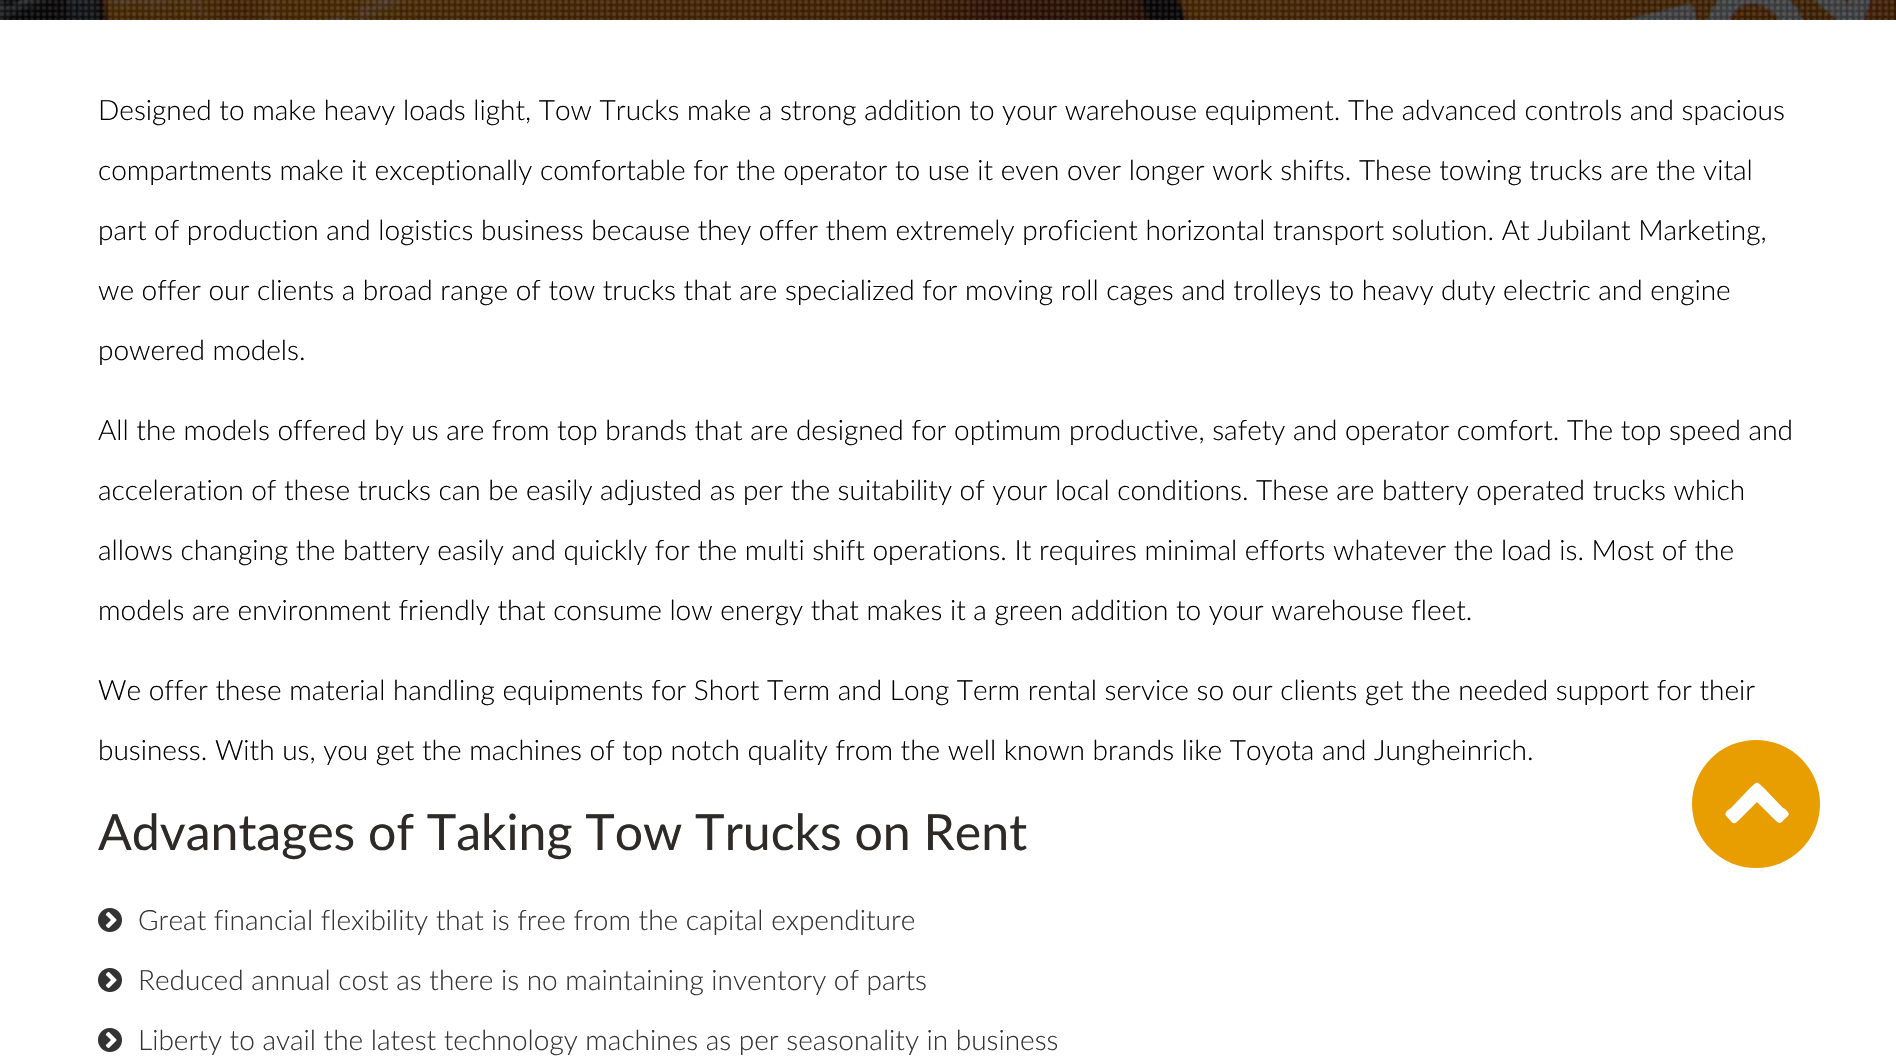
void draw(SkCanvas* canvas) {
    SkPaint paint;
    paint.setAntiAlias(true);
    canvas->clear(0xFFFFFFFF);
    canvas->drawImageRect(SkImages::DeferredFromEncodedData(SkData::MakeFromFileName("img1.png")), SkRect::MakeXYWH(0, 0, 1896, 20), SkSamplingOptions());
    SkFont font1(fontMgr->matchFamilyStyle("Lato", SkFontStyle(300, SkFontStyle::kNormal_Width, SkFontStyle::kUpright_Slant)), 28);
    font1.setSubpixel(true);
    paint.setColor(0xFF000000);
    canvas->drawString("Designed to make heavy loads light, Tow Trucks make a strong addition to your warehouse equipment. The advanced controls and spacious", 98, 120, font1, paint);
    canvas->drawString("compartments make it exceptionally comfortable for the operator to use it even over longer work shifts. These towing trucks are the vital", 98, 180, font1, paint);
    canvas->drawString("part of production and logistics business because they offer them extremely proficient horizontal transport solution. At Jubilant Marketing,", 98, 240, font1, paint);
    canvas->drawString("we offer our clients a broad range of tow trucks that are specialized for moving roll cages and trolleys to heavy duty electric and engine", 98, 300, font1, paint);
    canvas->drawString("powered models.", 98, 360, font1, paint);
    canvas->drawString("All the models offered by us are from top brands that are designed for optimum productive, safety and operator comfort. The top speed and", 98, 440, font1, paint);
    canvas->drawString("acceleration of these trucks can be easily adjusted as per the suitability of your local conditions. These are battery operated trucks which", 98, 500, font1, paint);
    canvas->drawString("allows changing the battery easily and quickly for the multi shift operations. It requires minimal efforts whatever the load is. Most of the", 98, 560, font1, paint);
    canvas->drawString("models are environment friendly that consume low energy that makes it a green addition to your warehouse fleet.", 98, 620, font1, paint);
    canvas->drawString("We offer these material handling equipments for Short Term and Long Term rental service so our clients get the needed support for their", 98, 700, font1, paint);
    canvas->drawString("business. With us, you get the machines of top notch quality from the well known brands like Toyota and Jungheinrich.", 98, 760, font1, paint);
    SkFont font2(fontMgr->matchFamilyStyle("Lato", SkFontStyle::Normal()), 50);
    font2.setSubpixel(true);
    paint.setColor(0xFF2D2A28);
    canvas->drawString("Advantages of Taking Tow Trucks on Rent", 98, 850, font2, paint);
    canvas->drawImageRect(SkImages::DeferredFromEncodedData(SkData::MakeFromFileName("img2.png")), SkRect::MakeXYWH(98, 908, 24, 24), SkSamplingOptions());
    paint.setColor(0xFF333333);
    canvas->drawString("Great financial flexibility that is free from the capital expenditure", 138, 930, font1, paint);
    canvas->drawImageRect(SkImages::DeferredFromEncodedData(SkData::MakeFromFileName("img2.png")), SkRect::MakeXYWH(98, 968, 24, 24), SkSamplingOptions());
    canvas->drawString("Reduced annual cost as there is no maintaining inventory of parts", 138, 990, font1, paint);
    canvas->drawImageRect(SkImages::DeferredFromEncodedData(SkData::MakeFromFileName("img2.png")), SkRect::MakeXYWH(98, 1028, 24, 24), SkSamplingOptions());
    canvas->drawString("Liberty to avail the latest technology machines as per seasonality in business", 138, 1050, font1, paint);
    paint.setColor(0xFFE89D00);
    canvas->drawCircle(1756, 804, 64, paint);
    paint.setColor(0xFFFFFFFF);
    canvas->drawPath(SkPathBuilder().moveTo(1788, 816).cubicTo(1780, 823, 1781, 826, 1774, 819).lineTo(1757, 802).lineTo(1740, 819).cubicTo(1733, 826, 1734, 824, 1727, 817).cubicTo(1723, 813, 1727, 811, 1731, 808).lineTo(1750, 788).cubicTo(1758, 781, 1756, 781, 1764, 788).lineTo(1783, 808).cubicTo(1784, 808, 1791, 813, 1788, 816).close().detach(), paint);
}
